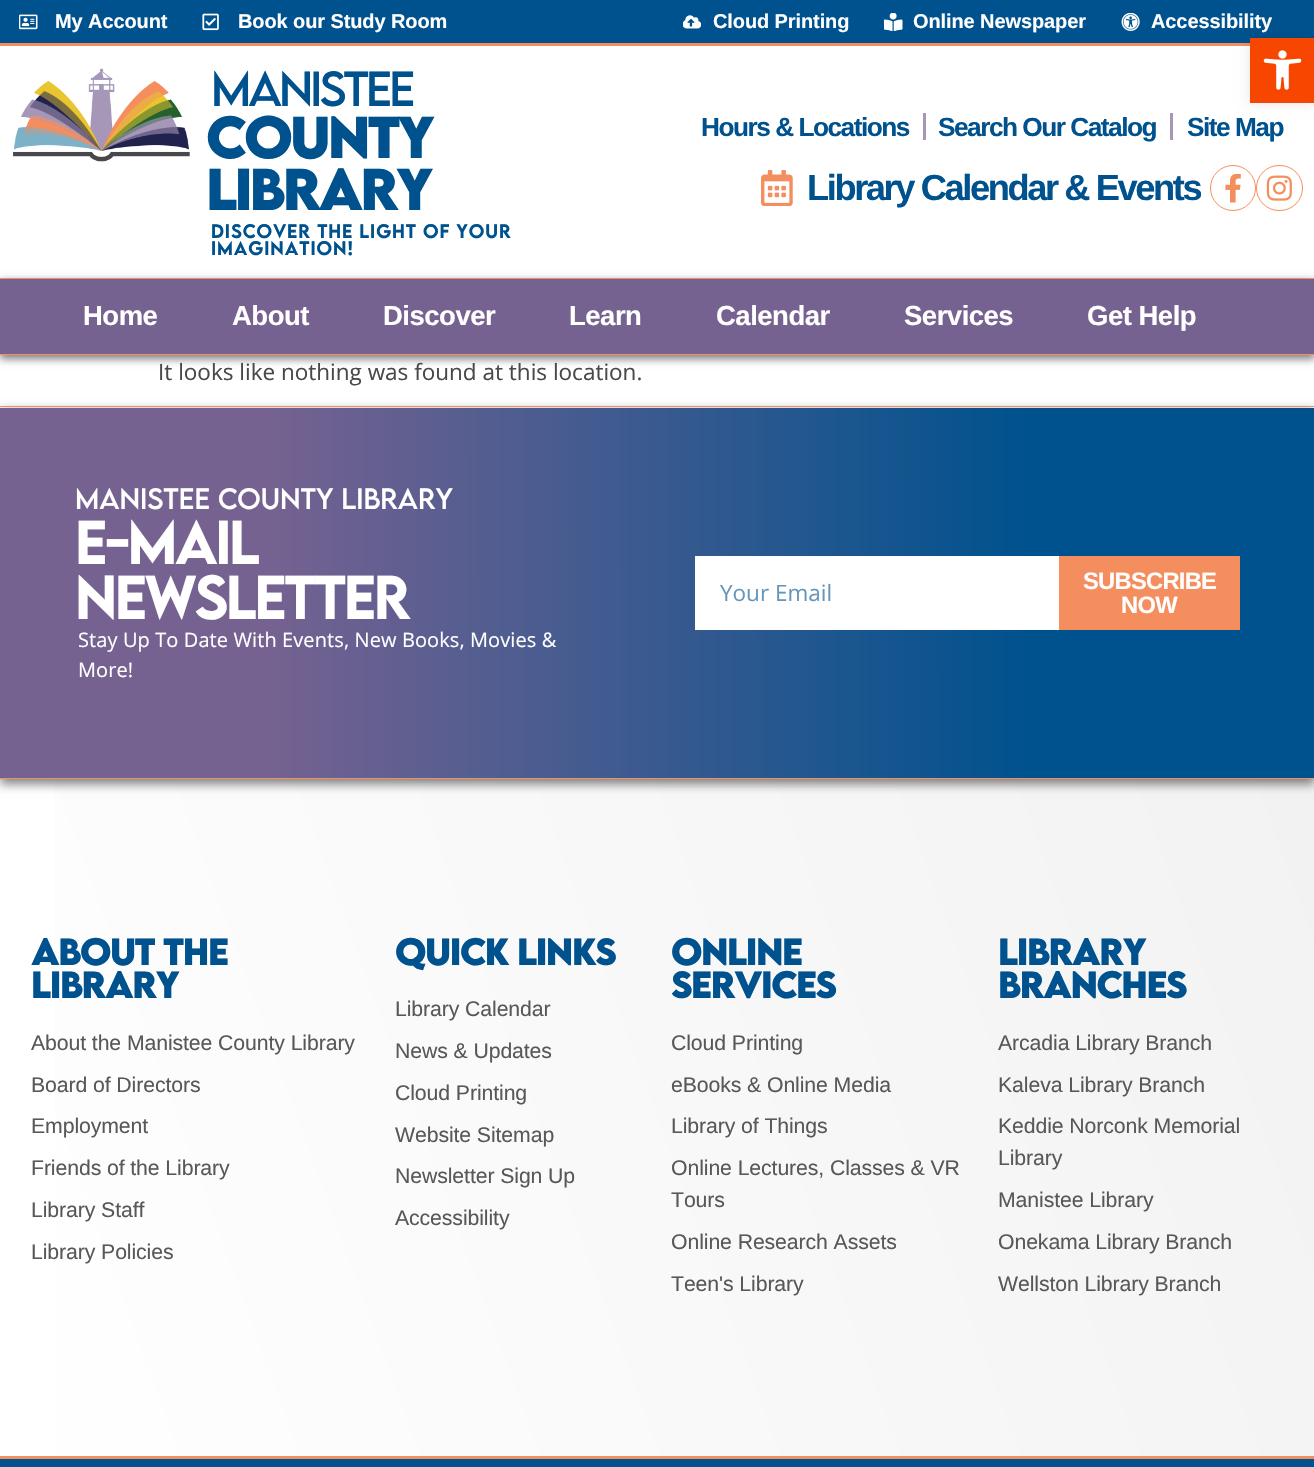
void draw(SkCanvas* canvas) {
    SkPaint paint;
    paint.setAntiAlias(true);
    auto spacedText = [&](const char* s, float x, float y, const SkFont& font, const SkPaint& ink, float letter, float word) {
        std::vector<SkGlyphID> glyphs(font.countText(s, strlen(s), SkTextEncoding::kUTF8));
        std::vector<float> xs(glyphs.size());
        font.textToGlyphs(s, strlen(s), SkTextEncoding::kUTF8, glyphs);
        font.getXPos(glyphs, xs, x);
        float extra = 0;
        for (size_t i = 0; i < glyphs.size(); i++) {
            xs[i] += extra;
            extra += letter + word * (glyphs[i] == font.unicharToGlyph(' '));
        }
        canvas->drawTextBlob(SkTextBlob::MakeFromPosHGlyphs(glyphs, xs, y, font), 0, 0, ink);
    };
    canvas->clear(0xFFFFFFFF);
    paint.setColor(0xFF00528E);
    canvas->drawRect(SkRect::MakeXYWH(0, 0, 1314, 43), paint);
    paint.setColor(0xFFF58E5F);
    canvas->drawRect(SkRect::MakeXYWH(0, 43, 1250, 3), paint);
    canvas->drawImageRect(SkImages::DeferredFromEncodedData(SkData::MakeFromFileName("img1.png")), SkRect::MakeXYWH(19, 14, 19, 16), SkSamplingOptions());
    SkFont font1(fontMgr->matchFamilyStyle("Liberation Sans", SkFontStyle::Bold()), 20);
    font1.setSubpixel(true);
    paint.setColor(0xFFFFFFFF);
    spacedText("My Account", 55, 28, font1, paint, -0.1f, 0);
    canvas->drawImageRect(SkImages::DeferredFromEncodedData(SkData::MakeFromFileName("img2.png")), SkRect::MakeXYWH(202, 13, 17, 18), SkSamplingOptions());
    spacedText("Book our Study Room", 238, 28, font1, paint, -0.1f, 0);
    canvas->drawImageRect(SkImages::DeferredFromEncodedData(SkData::MakeFromFileName("img3.png")), SkRect::MakeXYWH(683, 15, 18, 14), SkSamplingOptions());
    spacedText("Cloud Printing", 713, 28, font1, paint, -0.1f, 0);
    canvas->drawImageRect(SkImages::DeferredFromEncodedData(SkData::MakeFromFileName("img4.png")), SkRect::MakeXYWH(884, 13, 19, 18), SkSamplingOptions());
    spacedText("Online Newspaper", 913, 28, font1, paint, -0.1f, 0);
    canvas->drawImageRect(SkImages::DeferredFromEncodedData(SkData::MakeFromFileName("img5.png")), SkRect::MakeXYWH(1121, 13, 19, 18), SkSamplingOptions());
    spacedText("Accessibility", 1151, 28, font1, paint, -0.1f, 0);
    canvas->drawImageRect(SkImages::DeferredFromEncodedData(SkData::MakeFromFileName("img6.png")), SkRect::MakeXYWH(13, 68, 177, 94), SkSamplingOptions());
    SkFont font2(fontMgr->matchFamilyStyle("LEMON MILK", SkFontStyle::Normal()), 43.75f);
    font2.setSubpixel(true);
    paint.setColor(0xFF00528E);
    spacedText("Manistee", 211, 106, font2, paint, -3, 0);
    SkFont font3(fontMgr->matchFamilyStyle("LEMON MILK", SkFontStyle::Bold()), 52.5f);
    font3.setSubpixel(true);
    spacedText("County", 206, 158, font3, paint, -3, 0);
    spacedText("Library", 206, 210, font3, paint, -3, 0);
    SkFont font4(fontMgr->matchFamilyStyle("LEMON MILK", SkFontStyle(500, SkFontStyle::kNormal_Width, SkFontStyle::kUpright_Slant)), 17.5f);
    font4.setSubpixel(true);
    spacedText("Discover the Light Of Your", 211, 238, font4, paint, 0.9f, 0);
    spacedText("Imagination!", 211, 255, font4, paint, 0.9f, 0);
    SkFont font5(fontMgr->matchFamilyStyle("Liberation Sans", SkFontStyle::Bold()), 26.25f);
    font5.setSubpixel(true);
    spacedText("Hours & Locations", 701, 136, font5, paint, -1.5f, 0);
    paint.setColor(0xFFA697B9);
    canvas->drawRect(SkRect::MakeXYWH(923, 113, 3, 27), paint);
    paint.setColor(0xFF00528E);
    spacedText("Search Our Catalog", 938, 136, font5, paint, -1.5f, 0);
    paint.setColor(0xFFA697B9);
    canvas->drawRect(SkRect::MakeXYWH(1170, 113, 3, 27), paint);
    paint.setColor(0xFF00528E);
    spacedText("Site Map", 1187, 136, font5, paint, -1.5f, 0);
    canvas->drawImageRect(SkImages::DeferredFromEncodedData(SkData::MakeFromFileName("img7.png")), SkRect::MakeXYWH(761, 170, 32, 36), SkSamplingOptions());
    canvas->save();
    canvas->clipRect(SkRect::MakeXYWH(629, 161, 572, 55));
    SkFont font6(fontMgr->matchFamilyStyle("Liberation Sans", SkFontStyle::Bold()), 36.25f);
    font6.setSubpixel(true);
    spacedText("Library Calendar & Events", 807, 200, font6, paint, -2.4f, 0);
    canvas->restore();
    paint.setStyle(SkPaint::kStroke_Style);
    paint.setStrokeWidth(1);
    paint.setColor(0xFFF58E5F);
    canvas->drawCircle(1233, 188, 22.5f, paint);
    canvas->drawImageRect(SkImages::DeferredFromEncodedData(SkData::MakeFromFileName("img8.png")), SkRect::MakeXYWH(1225, 174, 16, 29), SkSamplingOptions());
    canvas->drawRoundRect(SkRect::MakeXYWH(1256.5f, 165.5f, 46, 45), 22.5f, 22.5f, paint);
    canvas->drawImageRect(SkImages::DeferredFromEncodedData(SkData::MakeFromFileName("img9.png")), SkRect::MakeXYWH(1266, 175, 26, 26), SkSamplingOptions());
    paint.setStyle(SkPaint::kFill_Style);
    paint.setColor(0x80000000);
    paint.setMaskFilter(SkMaskFilter::MakeBlur(kNormal_SkBlurStyle, 4));
    canvas->drawRect(SkRect::MakeXYWH(0, 281, 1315, 78), paint);
    paint.setMaskFilter(nullptr);
    paint.setColor(0xFF766291);
    canvas->drawRect(SkRect::MakeXYWH(0, 279, 1314, 75), paint);
    paint.setColor(0xFFF58E5F);
    canvas->drawRect(SkRect::MakeXYWH(0, 278, 1314, 1), paint);
    canvas->drawRect(SkRect::MakeXYWH(0, 354, 1314, 1), paint);
    SkFont font7(fontMgr->matchFamilyStyle("Liberation Sans", SkFontStyle::Bold()), 27.5f);
    font7.setSubpixel(true);
    paint.setColor(0xFFFFFFFF);
    spacedText("Home", 83, 325, font7, paint, -0.5f, 0);
    spacedText("About", 232, 325, font7, paint, -0.5f, 0);
    spacedText("Discover", 383, 325, font7, paint, -0.5f, 0);
    spacedText("Learn", 569, 325, font7, paint, -0.5f, 0);
    spacedText("Calendar", 716, 325, font7, paint, -0.5f, 0);
    spacedText("Services", 904, 325, font7, paint, -0.5f, 0);
    spacedText("Get Help", 1087, 325, font7, paint, -0.5f, 0);
    paint.setColor(0x1A000000);
    paint.setMaskFilter(SkMaskFilter::MakeBlur(kNormal_SkBlurStyle, 6));
    canvas->drawRect(SkRect::MakeXYWH(1250, 38, 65, 65), paint);
    paint.setMaskFilter(nullptr);
    paint.setColor(0xFFF74600);
    canvas->drawRect(SkRect::MakeXYWH(1250, 38, 64, 65), paint);
    canvas->drawImageRect(SkImages::DeferredFromEncodedData(SkData::MakeFromFileName("img10.png")), SkRect::MakeXYWH(1263, 50, 39, 40), SkSamplingOptions());
    SkFont font8(fontMgr->matchFamilyStyle("Open Sans", SkFontStyle::Normal()), 22.5f);
    font8.setSubpixel(true);
    paint.setColor(0xFF494949);
    canvas->drawString("It looks like nothing was found at this location.", 158, 380, font8, paint);
    {
        const SkColor colors[] = {0xFFF2F2F2, 0xFFFFFFFF};
        const float stops[] = {0, 1};
        const SkPoint ends[] = {{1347, 867}, {-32, 1368}};
        paint.setShader(SkGradientShader::MakeLinear(ends, colors, stops, 2, SkTileMode::kClamp));
        paint.setAlpha(255);
    }
    canvas->drawRect(SkRect::MakeXYWH(54, 779, 1260, 677), paint);
    paint.setShader(nullptr);
    paint.setColor(0x80000000);
    paint.setMaskFilter(SkMaskFilter::MakeBlur(kNormal_SkBlurStyle, 5));
    canvas->drawRect(SkRect::MakeXYWH(0, 411, 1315, 373), paint);
    paint.setMaskFilter(nullptr);
    {
        const SkColor colors[] = {0xFF766291, 0xFF00528E};
        const float stops[] = {0.2f, 0.78f};
        const SkPoint ends[] = {{0, 593}, {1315, 592}};
        paint.setShader(SkGradientShader::MakeLinear(ends, colors, stops, 2, SkTileMode::kClamp));
        paint.setAlpha(255);
    }
    canvas->drawRect(SkRect::MakeXYWH(0, 408, 1314, 370), paint);
    paint.setShader(nullptr);
    paint.setColor(0xFFF58E5F);
    canvas->drawRect(SkRect::MakeXYWH(0, 406, 1314, 1), paint);
    canvas->drawRect(SkRect::MakeXYWH(0, 778, 1314, 1), paint);
    SkFont font9(fontMgr->matchFamilyStyle("LEMON MILK", SkFontStyle::Normal()), 26.25f);
    font9.setSubpixel(true);
    paint.setColor(0xFFFFFFFF);
    canvas->drawString("Manistee County Library", 75, 509, font9, paint);
    SkFont font10(fontMgr->matchFamilyStyle("LEMON MILK", SkFontStyle(500, SkFontStyle::kNormal_Width, SkFontStyle::kUpright_Slant)), 55);
    font10.setSubpixel(true);
    spacedText("E-Mail", 75, 564, font10, paint, -2.5f, 0);
    spacedText("Newsletter", 75, 619, font10, paint, -2.5f, 0);
    SkFont font11(fontMgr->matchFamilyStyle("Open Sans", SkFontStyle::Normal()), 20);
    font11.setSubpixel(true);
    spacedText("Stay Up To Date With Events, New Books, Movies &", 78, 647, font11, paint, 0.1f, 0);
    spacedText("More!", 78, 677, font11, paint, 0.1f, 0);
    canvas->drawRect(SkRect::MakeXYWH(695, 556, 364, 74), paint);
    paint.setColor(0xFF6697BB);
    canvas->drawString("Your Email", 720, 601, font8, paint);
    paint.setColor(0xFFF58E5F);
    canvas->drawRect(SkRect::MakeXYWH(1059, 556, 181, 74), paint);
    SkFont font12(fontMgr->matchFamilyStyle("Liberation Sans", SkFontStyle::Bold()), 23.75f);
    font12.setSubpixel(true);
    paint.setColor(0xFFFFFFFF);
    spacedText("SUBSCRIBE", 1083, 589, font12, paint, -0.75f, 0);
    spacedText("NOW", 1121, 613, font12, paint, -0.75f, 0);
    SkFont font13(fontMgr->matchFamilyStyle("LEMON MILK", SkFontStyle::Bold()), 33.75f);
    font13.setSubpixel(true);
    paint.setColor(0xFF00528E);
    spacedText("ABOUT THE", 31, 965, font13, paint, -1.5f, 0);
    spacedText("LIBRARY", 31, 998, font13, paint, -1.5f, 0);
    SkFont font14(fontMgr->matchFamilyStyle("Liberation Sans", SkFontStyle::Normal()), 21.25f);
    font14.setSubpixel(true);
    paint.setColor(0xFF585858);
    spacedText("About the Manistee County Library", 31, 1050, font14, paint, -0.1f, 0);
    spacedText("Board of Directors", 31, 1092, font14, paint, -0.1f, 0);
    spacedText("Employment", 31, 1133, font14, paint, -0.1f, 0);
    spacedText("Friends of the Library", 31, 1175, font14, paint, -0.1f, 0);
    spacedText("Library Staff", 31, 1217, font14, paint, -0.1f, 0);
    spacedText("Library Policies", 31, 1259, font14, paint, -0.1f, 0);
    paint.setColor(0xFF00528E);
    spacedText("QUICK LINKS", 395, 965, font13, paint, -1.5f, 0);
    paint.setColor(0xFF585858);
    spacedText("Library Calendar", 395, 1016, font14, paint, -0.1f, 0);
    spacedText("News & Updates", 395, 1058, font14, paint, -0.1f, 0);
    spacedText("Cloud Printing", 395, 1100, font14, paint, -0.1f, 0);
    spacedText("Website Sitemap", 395, 1142, font14, paint, -0.1f, 0);
    spacedText("Newsletter Sign Up", 395, 1183, font14, paint, -0.1f, 0);
    spacedText("Accessibility", 395, 1225, font14, paint, -0.1f, 0);
    paint.setColor(0xFF00528E);
    spacedText("ONLINE", 671, 965, font13, paint, -1.5f, 0);
    spacedText("SERVICES", 671, 998, font13, paint, -1.5f, 0);
    paint.setColor(0xFF585858);
    spacedText("Cloud Printing", 671, 1050, font14, paint, -0.1f, 0);
    spacedText("eBooks & Online Media", 671, 1092, font14, paint, -0.1f, 0);
    spacedText("Library of Things", 671, 1133, font14, paint, -0.1f, 0);
    spacedText("Online Lectures, Classes & VR", 671, 1175, font14, paint, -0.1f, 0);
    spacedText("Tours", 671, 1207, font14, paint, -0.1f, 0);
    spacedText("Online Research Assets", 671, 1249, font14, paint, -0.1f, 0);
    spacedText("Teen's Library", 671, 1291, font14, paint, -0.1f, 0);
    paint.setColor(0xFF00528E);
    spacedText("LIBRARY", 998, 965, font13, paint, -1.5f, 0);
    spacedText("BRANCHES", 998, 998, font13, paint, -1.5f, 0);
    paint.setColor(0xFF585858);
    spacedText("Arcadia Library Branch", 998, 1050, font14, paint, -0.1f, 0);
    spacedText("Kaleva Library Branch", 998, 1092, font14, paint, -0.1f, 0);
    spacedText("Keddie Norconk Memorial", 998, 1133, font14, paint, -0.1f, 0);
    spacedText("Library", 998, 1165, font14, paint, -0.1f, 0);
    spacedText("Manistee Library", 998, 1207, font14, paint, -0.1f, 0);
    spacedText("Onekama Library Branch", 998, 1249, font14, paint, -0.1f, 0);
    spacedText("Wellston Library Branch", 998, 1291, font14, paint, -0.1f, 0);
    paint.setColor(0xFF00528E);
    canvas->drawRect(SkRect::MakeXYWH(0, 1459, 1314, 8), paint);
    paint.setColor(0xFFF58E5F);
    canvas->drawRect(SkRect::MakeXYWH(0, 1456, 1314, 3), paint);
}
